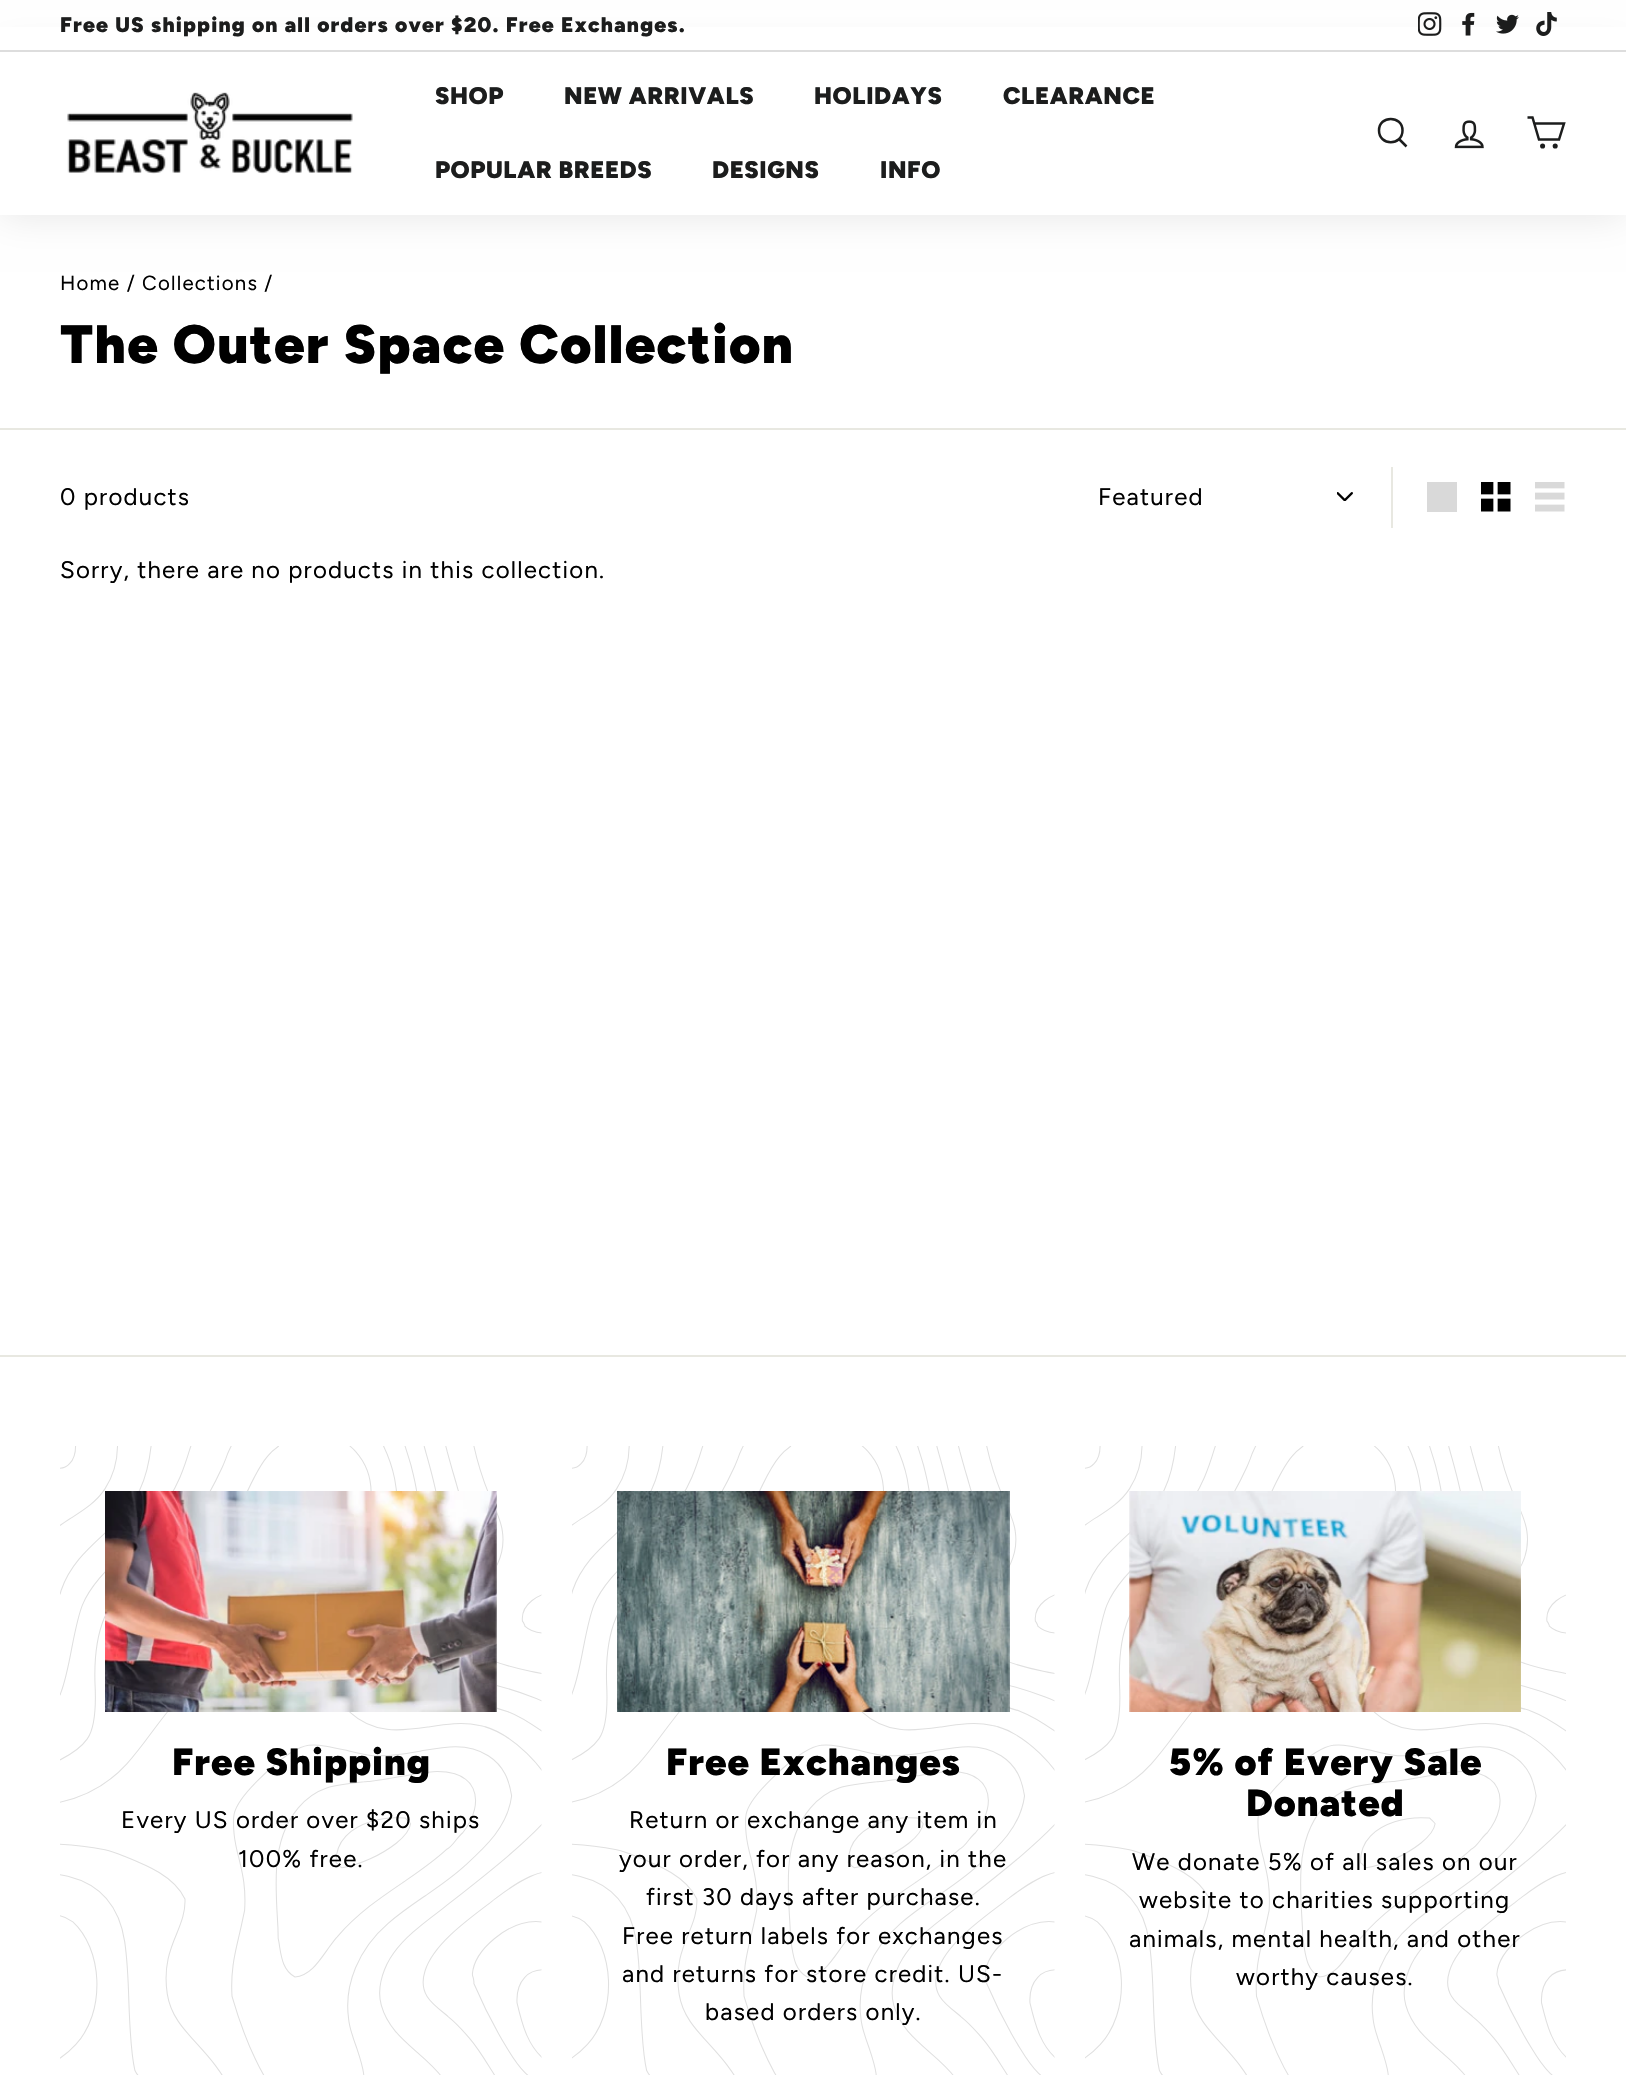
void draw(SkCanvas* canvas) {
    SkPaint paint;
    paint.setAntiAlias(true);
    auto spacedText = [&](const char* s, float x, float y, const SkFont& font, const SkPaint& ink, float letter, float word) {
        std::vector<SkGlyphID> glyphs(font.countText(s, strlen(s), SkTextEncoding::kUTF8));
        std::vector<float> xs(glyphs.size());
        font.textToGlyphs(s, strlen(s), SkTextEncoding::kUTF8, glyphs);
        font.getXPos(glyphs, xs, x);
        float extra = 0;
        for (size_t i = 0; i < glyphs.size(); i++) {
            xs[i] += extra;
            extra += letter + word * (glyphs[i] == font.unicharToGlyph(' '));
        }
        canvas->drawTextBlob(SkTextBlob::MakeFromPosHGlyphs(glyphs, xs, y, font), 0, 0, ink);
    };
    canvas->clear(0xFFFFFFFF);
    paint.setColor(0x1A000000);
    paint.setMaskFilter(SkMaskFilter::MakeBlur(kNormal_SkBlurStyle, 19));
    canvas->drawRect(SkRect::MakeXYWH(0, 51, 1626, 164), paint);
    paint.setMaskFilter(nullptr);
    paint.setColor(0xFFFFFFFF);
    canvas->drawRect(SkRect::MakeXYWH(0, 27, 1626, 23), paint);
    SkFont font1(fontMgr->matchFamilyStyle("Figtree", SkFontStyle(900, SkFontStyle::kNormal_Width, SkFontStyle::kUpright_Slant)), 21);
    font1.setSubpixel(true);
    paint.setColor(0xFF1C1D1D);
    spacedText("Free US shipping on all orders over $20. Free Exchanges.", 60, 32, font1, paint, 1.2f, 0);
    canvas->drawImageRect(SkImages::DeferredFromEncodedData(SkData::MakeFromFileName("img1.png")), SkRect::MakeXYWH(1418, 12, 24, 24), SkSamplingOptions());
    canvas->drawImageRect(SkImages::DeferredFromEncodedData(SkData::MakeFromFileName("img2.png")), SkRect::MakeXYWH(1462, 12, 13, 24), SkSamplingOptions());
    canvas->drawImageRect(SkImages::DeferredFromEncodedData(SkData::MakeFromFileName("img3.png")), SkRect::MakeXYWH(1496, 14, 23, 20), SkSamplingOptions());
    canvas->drawImageRect(SkImages::DeferredFromEncodedData(SkData::MakeFromFileName("img4.png")), SkRect::MakeXYWH(1536, 12, 21, 24), SkSamplingOptions());
    paint.setColor(0xFFDDDDDD);
    canvas->drawRect(SkRect::MakeXYWH(0, 50, 1626, 2), paint);
    paint.setColor(0xFFFFFFFF);
    canvas->drawRect(SkRect::MakeXYWH(0, 52, 1626, 163), paint);
    canvas->drawImageRect(SkImages::DeferredFromEncodedData(SkData::MakeFromFileName("img5.png")), SkRect::MakeXYWH(67, 92, 286, 82), SkSamplingOptions());
    SkFont font2(fontMgr->matchFamilyStyle("Figtree", SkFontStyle(900, SkFontStyle::kNormal_Width, SkFontStyle::kUpright_Slant)), 24);
    font2.setSubpixel(true);
    paint.setColor(0xFF1C1D1D);
    spacedText("SHOP", 435, 104, font2, paint, 0.6f, 0);
    spacedText("NEW ARRIVALS", 564, 104, font2, paint, 0.6f, 0);
    spacedText("HOLIDAYS", 814, 104, font2, paint, 0.6f, 0);
    spacedText("CLEARANCE", 1003, 104, font2, paint, 0.6f, 0);
    spacedText("POPULAR BREEDS", 435, 178, font2, paint, 0.6f, 0);
    spacedText("DESIGNS", 712, 178, font2, paint, 0.6f, 0);
    spacedText("INFO", 880, 178, font2, paint, 0.6f, 0);
    paint.setStyle(SkPaint::kStroke_Style);
    paint.setStrokeWidth(2.5f);
    canvas->drawPath(SkPathBuilder().moveTo(1402.5f, 130.5f).cubicTo(1402.5f, 146, 1379, 146, 1379, 130.5f).cubicTo(1379, 115, 1402.5f, 115, 1402.5f, 130.5f).close().moveTo(1406.5f, 146.5f).lineTo(1399, 139).detach(), paint);
    canvas->drawImageRect(SkImages::DeferredFromEncodedData(SkData::MakeFromFileName("img6.png")), SkRect::MakeXYWH(1454, 120, 30, 29), SkSamplingOptions());
    canvas->drawPath(SkPathBuilder().moveTo(1534.5f, 123.5f).lineTo(1564, 123.5f).lineTo(1559, 139.5f).lineTo(1539, 139.5f).lineTo(1532.5f, 117.5f).lineTo(1527.5f, 117.5f).detach(), paint);
    canvas->drawCircle(1542.6f, 146, 1.3f, paint);
    canvas->drawCircle(1555.2f, 146, 1.3f, paint);
    SkFont font3(fontMgr->matchFamilyStyle("Figtree", SkFontStyle::Normal()), 20.4f);
    font3.setSubpixel(true);
    paint.setStyle(SkPaint::kFill_Style);
    paint.setColor(0xFF000000);
    spacedText("Home / Collections /", 60, 290, font3, paint, 1.2f, 0);
    SkFont font4(fontMgr->matchFamilyStyle("Figtree", SkFontStyle(900, SkFontStyle::kNormal_Width, SkFontStyle::kUpright_Slant)), 54);
    font4.setSubpixel(true);
    spacedText("The Outer Space Collection", 60, 363, font4, paint, 1.35f, 0);
    paint.setColor(0xFFE8E8E1);
    canvas->drawRect(SkRect::MakeXYWH(0, 428, 1626, 2), paint);
    SkFont font5(fontMgr->matchFamilyStyle("Figtree", SkFontStyle::Normal()), 24);
    font5.setSubpixel(true);
    paint.setColor(0xFF000000);
    spacedText("0 products", 60, 505, font5, paint, 1.2f, 0);
    paint.setColor(0xFFE8E8E1);
    canvas->drawRect(SkRect::MakeXYWH(1391, 467, 2, 61), paint);
    canvas->drawImageRect(SkImages::DeferredFromEncodedData(SkData::MakeFromFileName("img7.png")), SkRect::MakeXYWH(1337, 492, 16, 9), SkSamplingOptions());
    paint.setColor(0xFF000000);
    spacedText("Featured", 1098, 505, font5, paint, 1.2f, 0);
    paint.setColor(0xFFD9D9D9);
    canvas->drawRect(SkRect::MakeXYWH(1427, 482, 30, 30), paint);
    canvas->drawImageRect(SkImages::DeferredFromEncodedData(SkData::MakeFromFileName("img8.png")), SkRect::MakeXYWH(1481, 482, 30, 30), SkSamplingOptions());
    canvas->drawImageRect(SkImages::DeferredFromEncodedData(SkData::MakeFromFileName("img9.png")), SkRect::MakeXYWH(1535, 482, 30, 30), SkSamplingOptions());
    paint.setColor(0xFF000000);
    spacedText("Sorry, there are no products in this collection.", 60, 578, font5, paint, 1.2f, 0);
    paint.setColor(0xFFE8E8E1);
    canvas->drawRect(SkRect::MakeXYWH(0, 1355, 1626, 2), paint);
    canvas->drawImageRect(SkImages::DeferredFromEncodedData(SkData::MakeFromFileName("img10.png")), SkRect::MakeXYWH(60, 1446, 482, 629), SkSamplingOptions());
    paint.setColor(0xFFFFFFFF);
    canvas->drawRect(SkRect::MakeXYWH(495, 1507, 2, 205), paint);
    canvas->drawImageRect(SkImages::DeferredFromEncodedData(SkData::MakeFromFileName("img11.png")), SkRect::MakeXYWH(105, 1491, 392, 221), SkSamplingOptions());
    SkFont font6(fontMgr->matchFamilyStyle("Figtree", SkFontStyle(900, SkFontStyle::kNormal_Width, SkFontStyle::kUpright_Slant)), 37.75f);
    font6.setSubpixel(true);
    paint.setColor(0xFF000000);
    spacedText("Free Shipping", 172, 1775, font6, paint, 1, 0);
    spacedText("Every US order over $20 ships", 121, 1828, font5, paint, 1.2f, 0);
    spacedText("100% free.", 238, 1867, font5, paint, 1.2f, 0);
    canvas->drawImageRect(SkImages::DeferredFromEncodedData(SkData::MakeFromFileName("img12.png")), SkRect::MakeXYWH(572, 1446, 483, 629), SkSamplingOptions());
    canvas->drawImageRect(SkImages::DeferredFromEncodedData(SkData::MakeFromFileName("img13.png")), SkRect::MakeXYWH(617, 1491, 393, 221), SkSamplingOptions());
    spacedText("Free Exchanges", 666, 1775, font6, paint, 1, 0);
    spacedText("Return or exchange any item in", 629, 1828, font5, paint, 1.2f, 0);
    spacedText("your order, for any reason, in the", 619, 1867, font5, paint, 1.2f, 0);
    spacedText("first 30 days after purchase.", 646, 1905, font5, paint, 1.2f, 0);
    spacedText("Free return labels for exchanges", 622, 1944, font5, paint, 1.2f, 0);
    spacedText("and returns for store credit. US-", 622, 1982, font5, paint, 1.2f, 0);
    spacedText("based orders only.", 705, 2020, font5, paint, 1.2f, 0);
    canvas->drawImageRect(SkImages::DeferredFromEncodedData(SkData::MakeFromFileName("img14.png")), SkRect::MakeXYWH(1085, 1446, 481, 629), SkSamplingOptions());
    canvas->drawImageRect(SkImages::DeferredFromEncodedData(SkData::MakeFromFileName("img15.png")), SkRect::MakeXYWH(1129, 1491, 392, 221), SkSamplingOptions());
    spacedText("5% of Every Sale", 1169, 1775, font6, paint, 1, 0);
    spacedText("Donated", 1246, 1816, font6, paint, 1, 0);
    spacedText("We donate 5% of all sales on our", 1132, 1870, font5, paint, 1.2f, 0);
    spacedText("website to charities supporting", 1139, 1908, font5, paint, 1.2f, 0);
    spacedText("animals, mental health, and other", 1129, 1947, font5, paint, 1.2f, 0);
    spacedText("worthy causes.", 1236, 1985, font5, paint, 1.2f, 0);
}
